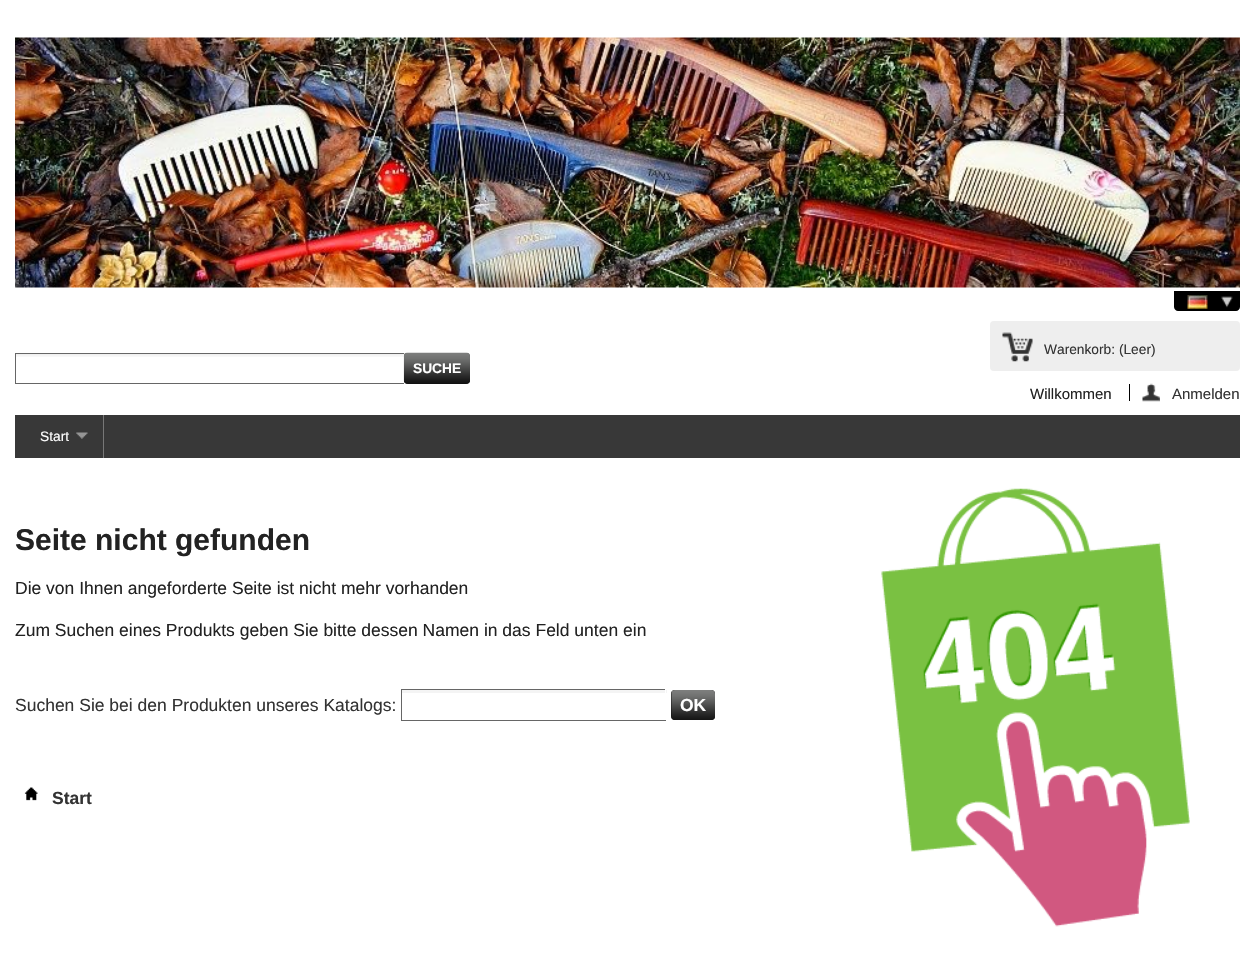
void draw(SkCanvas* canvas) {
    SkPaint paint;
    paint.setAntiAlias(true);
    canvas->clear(0xFFFFFFFF);
    canvas->drawImageRect(SkImages::DeferredFromEncodedData(SkData::MakeFromFileName("img1.png")), SkRect::MakeXYWH(15, 37, 1225, 251), SkSamplingOptions());
    paint.setColor(0xFF000000);
    canvas->drawPath(SkPathBuilder().moveTo(1174, 291).lineTo(1240, 291).lineTo(1240, 307).cubicTo(1240, 309, 1238, 311, 1236, 311).lineTo(1178, 311).cubicTo(1176, 311, 1174, 309, 1174, 307).close().detach(), paint);
    canvas->drawImageRect(SkImages::DeferredFromEncodedData(SkData::MakeFromFileName("img2.png")), SkRect::MakeXYWH(1221, 296, 12, 12), SkSamplingOptions());
    canvas->drawImageRect(SkImages::DeferredFromEncodedData(SkData::MakeFromFileName("img3.png")), SkRect::MakeXYWH(1187, 295, 21, 14), SkSamplingOptions());
    canvas->drawImageRect(SkImages::DeferredFromEncodedData(SkData::MakeFromFileName("img4.png")), SkRect::MakeXYWH(16, 354, 388, 3), SkSamplingOptions());
    paint.setColor(0xFF666666);
    canvas->drawRect(SkRect::MakeXYWH(15, 353, 389, 1), paint);
    canvas->drawRect(SkRect::MakeXYWH(15, 383, 389, 1), paint);
    canvas->drawRect(SkRect::MakeXYWH(15, 353, 1, 31), paint);
    paint.setColor(0xFF101010);
    canvas->drawRoundRect(SkRect::MakeXYWH(404, 353, 66, 31), 4, 4, paint);
    canvas->drawImageRect(SkImages::DeferredFromEncodedData(SkData::MakeFromFileName("img5.png")), SkRect::MakeXYWH(403, 352, 67, 32), SkSamplingOptions());
    SkFont font1(fontMgr->matchFamilyStyle("Liberation Sans", SkFontStyle::Bold()), 13.75f);
    font1.setSubpixel(true);
    paint.setColor(0xFFFFFFFF);
    canvas->drawString("SUCHE", 413, 373, font1, paint);
    paint.setColor(0xFFEEEEEE);
    canvas->drawRoundRect(SkRect::MakeXYWH(990, 321, 250, 50), 4, 4, paint);
    canvas->drawImageRect(SkImages::DeferredFromEncodedData(SkData::MakeFromFileName("img6.png")), SkRect::MakeXYWH(1002, 332, 31, 30), SkSamplingOptions());
    SkFont font2(fontMgr->matchFamilyStyle("Liberation Sans", SkFontStyle::Normal()), 13.75f);
    font2.setSubpixel(true);
    paint.setColor(0xFF333333);
    canvas->drawString("Warenkorb: (Leer)", 1044, 354, font2, paint);
    SkFont font3(fontMgr->matchFamilyStyle("Liberation Sans", SkFontStyle::Normal()), 15);
    font3.setSubpixel(true);
    paint.setColor(0xFF222222);
    canvas->drawString("Willkommen", 1030, 399, font3, paint);
    canvas->drawImageRect(SkImages::DeferredFromEncodedData(SkData::MakeFromFileName("img7.png")), SkRect::MakeXYWH(1142, 383, 18, 19), SkSamplingOptions());
    paint.setColor(0xFF000000);
    canvas->drawRect(SkRect::MakeXYWH(1129, 384, 1, 17), paint);
    paint.setColor(0xFF333333);
    canvas->drawString("Anmelden", 1172, 399, font3, paint);
    paint.setColor(0xFF383838);
    canvas->drawRect(SkRect::MakeXYWH(15, 415, 1225, 43), paint);
    paint.setColor(0xFF777777);
    canvas->drawRect(SkRect::MakeXYWH(103, 415, 1, 43), paint);
    paint.setColor(0xFFFFFFFF);
    canvas->drawString("Start", 40, 441, font2, paint);
    canvas->drawImageRect(SkImages::DeferredFromEncodedData(SkData::MakeFromFileName("img8.png")), SkRect::MakeXYWH(76, 432, 12, 7), SkSamplingOptions());
    canvas->drawImageRect(SkImages::DeferredFromEncodedData(SkData::MakeFromFileName("img9.png")), SkRect::MakeXYWH(881, 488, 309, 439), SkSamplingOptions());
    SkFont font4(fontMgr->matchFamilyStyle("Liberation Sans", SkFontStyle::Bold()), 30);
    font4.setSubpixel(true);
    paint.setColor(0xFF222222);
    canvas->drawString("Seite nicht gefunden", 15, 550, font4, paint);
    SkFont font5(fontMgr->matchFamilyStyle("Liberation Sans", SkFontStyle::Normal()), 17.5f);
    font5.setSubpixel(true);
    canvas->drawString("Die von Ihnen angeforderte Seite ist nicht mehr vorhanden", 15, 594, font5, paint);
    canvas->drawString("Zum Suchen eines Produkts geben Sie bitte dessen Namen in das Feld unten ein", 15, 636, font5, paint);
    paint.setColor(0xFF333333);
    canvas->drawString("Suchen Sie bei den Produkten unseres Katalogs:", 15, 711, font5, paint);
    paint.setColor(0xFFF4F4F4);
    canvas->drawRect(SkRect::MakeXYWH(401, 690, 266, 3), paint);
    paint.setColor(0xFF666666);
    canvas->drawRect(SkRect::MakeXYWH(401, 689, 265, 1), paint);
    paint.setColor(0xFFFFFFFF);
    canvas->drawRect(SkRect::MakeXYWH(665, 689, 1, 4), paint);
    paint.setColor(0xFF666666);
    canvas->drawRect(SkRect::MakeXYWH(401, 720, 265, 1), paint);
    canvas->drawRect(SkRect::MakeXYWH(401, 689, 1, 32), paint);
    paint.setColor(0xFF101010);
    canvas->drawRoundRect(SkRect::MakeXYWH(671, 690, 44, 30), 4, 4, paint);
    canvas->drawImageRect(SkImages::DeferredFromEncodedData(SkData::MakeFromFileName("img10.png")), SkRect::MakeXYWH(671, 690, 44, 30), SkSamplingOptions());
    SkFont font6(fontMgr->matchFamilyStyle("Liberation Sans", SkFontStyle::Bold()), 17.5f);
    font6.setSubpixel(true);
    paint.setColor(0xFFFFFFFF);
    canvas->drawString("OK", 680, 711, font6, paint);
    canvas->drawImageRect(SkImages::DeferredFromEncodedData(SkData::MakeFromFileName("img11.png")), SkRect::MakeXYWH(24, 787, 14, 14), SkSamplingOptions());
    paint.setColor(0xFF333333);
    canvas->drawString("Start", 52, 804, font6, paint);
}
